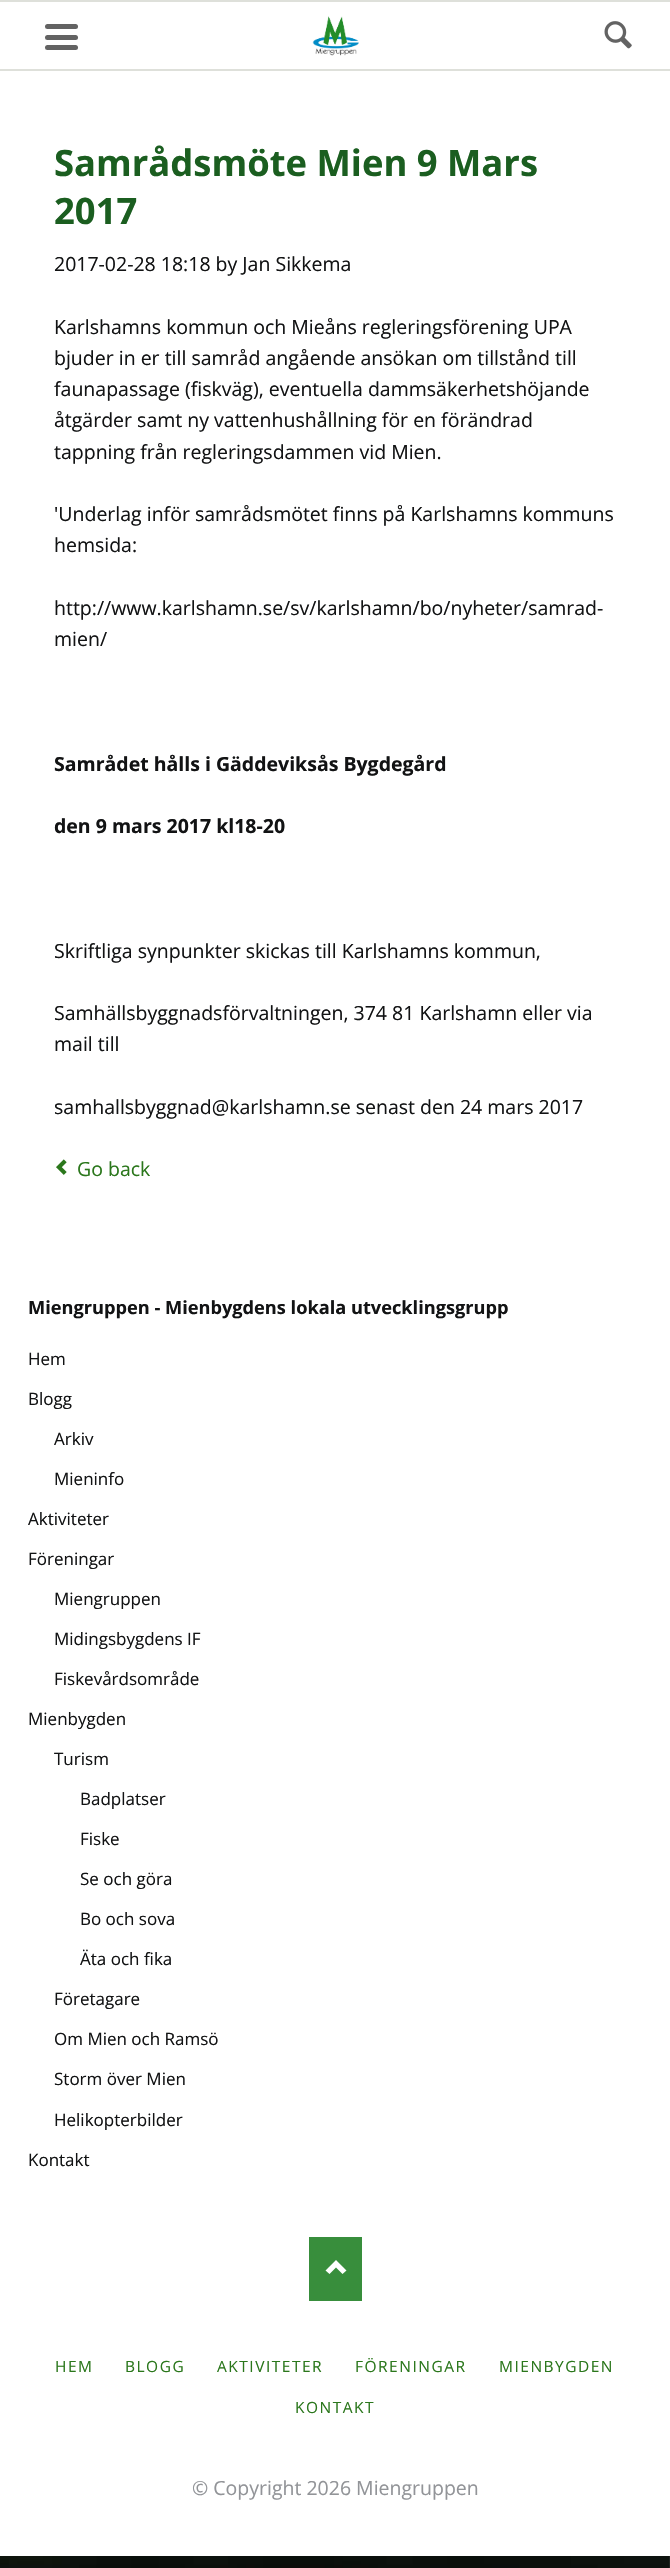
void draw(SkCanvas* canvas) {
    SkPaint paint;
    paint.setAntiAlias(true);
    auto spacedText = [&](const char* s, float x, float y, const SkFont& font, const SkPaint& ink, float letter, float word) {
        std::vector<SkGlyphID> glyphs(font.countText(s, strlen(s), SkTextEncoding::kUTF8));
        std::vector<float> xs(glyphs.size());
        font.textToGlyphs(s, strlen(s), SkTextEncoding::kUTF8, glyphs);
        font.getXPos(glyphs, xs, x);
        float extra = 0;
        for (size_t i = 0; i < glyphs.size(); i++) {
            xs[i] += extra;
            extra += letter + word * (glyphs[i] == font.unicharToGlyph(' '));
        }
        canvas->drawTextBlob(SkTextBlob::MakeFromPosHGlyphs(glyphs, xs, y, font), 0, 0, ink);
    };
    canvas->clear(0xFFFFFFFF);
    canvas->drawImageRect(SkImages::DeferredFromEncodedData(SkData::MakeFromFileName("img1.png")), SkRect::MakeXYWH(0, 2556, 670, 12), SkSamplingOptions());
    paint.setColor(0xFFDEE0DA);
    canvas->drawRect(SkRect::MakeXYWH(0, 0, 670, 2), paint);
    canvas->drawRect(SkRect::MakeXYWH(0, 69, 670, 2), paint);
    paint.setColor(0xFF636363);
    canvas->drawRoundRect(SkRect::MakeXYWH(45, 45, 33, 5), 2.5f, 2.5f, paint);
    canvas->drawRoundRect(SkRect::MakeXYWH(45, 35, 33, 5), 2.5f, 2.5f, paint);
    canvas->drawRoundRect(SkRect::MakeXYWH(45, 24, 33, 5), 2.5f, 2.5f, paint);
    canvas->drawImageRect(SkImages::DeferredFromEncodedData(SkData::MakeFromFileName("img2.png")), SkRect::MakeXYWH(312, 16, 47, 40), SkSamplingOptions());
    canvas->drawImageRect(SkImages::DeferredFromEncodedData(SkData::MakeFromFileName("img3.png")), SkRect::MakeXYWH(604, 21, 28, 28), SkSamplingOptions());
    SkFont font1(fontMgr->matchFamilyStyle("Open Sans", SkFontStyle::Bold()), 36.4f);
    font1.setSubpixel(true);
    paint.setColor(0xFF1B5E20);
    canvas->drawString("Samrådsmöte Mien 9 Mars", 54, 176, font1, paint);
    canvas->drawString("2017", 54, 224, font1, paint);
    SkFont font2(fontMgr->matchFamilyStyle("Open Sans", SkFontStyle::Normal()), 19.5f);
    font2.setSubpixel(true);
    paint.setColor(0xFF121314);
    canvas->drawString("2017-02-28 18:18 by Jan Sikkema", 54, 271, font2, paint);
    canvas->drawString("Karlshamns kommun och Mieåns regleringsförening UPA", 54, 334, font2, paint);
    canvas->drawString("bjuder in er till samråd angående ansökan om tillstånd till", 54, 365, font2, paint);
    canvas->drawString("faunapassage (fiskväg), eventuella dammsäkerhetshöjande", 54, 396, font2, paint);
    canvas->drawString("åtgärder samt ny vattenhushållning för en förändrad", 54, 427, font2, paint);
    canvas->drawString("tappning från regleringsdammen vid Mien.", 54, 459, font2, paint);
    canvas->drawString("'Underlag inför samrådsmötet finns på Karlshamns kommuns", 54, 521, font2, paint);
    canvas->drawString("hemsida:", 54, 552, font2, paint);
    canvas->drawString("http://www.karlshamn.se/sv/karlshamn/bo/nyheter/samrad-", 54, 615, font2, paint);
    canvas->drawString("mien/", 54, 646, font2, paint);
    SkFont font3(fontMgr->matchFamilyStyle("Open Sans", SkFontStyle::Bold()), 19.5f);
    font3.setSubpixel(true);
    canvas->drawString("Samrådet hålls i Gäddeviksås Bygdegård", 54, 771, font3, paint);
    canvas->drawString("den 9 mars 2017 kl18-20", 54, 833, font3, paint);
    canvas->drawString("Skriftliga synpunkter skickas till Karlshamns kommun,", 54, 958, font2, paint);
    canvas->drawString("Samhällsbyggnadsförvaltningen, 374 81 Karlshamn eller via", 54, 1020, font2, paint);
    canvas->drawString("mail till", 54, 1051, font2, paint);
    canvas->drawString("samhallsbyggnad@karlshamn.se senast den 24 mars 2017", 54, 1114, font2, paint);
    canvas->drawImageRect(SkImages::DeferredFromEncodedData(SkData::MakeFromFileName("img4.png")), SkRect::MakeXYWH(56, 1159, 11, 16), SkSamplingOptions());
    paint.setColor(0xFF2B771C);
    canvas->drawString("Go back", 77, 1176, font2, paint);
    SkFont font4(fontMgr->matchFamilyStyle("Open Sans", SkFontStyle::Bold()), 18.2f);
    font4.setSubpixel(true);
    paint.setColor(0xFF121314);
    canvas->drawString("Miengruppen - Mienbygdens lokala utvecklingsgrupp", 28, 1314, font4, paint);
    SkFont font5(fontMgr->matchFamilyStyle("Open Sans", SkFontStyle::Normal()), 17);
    font5.setSubpixel(true);
    canvas->drawString("Hem", 28, 1365, font5, paint);
    canvas->drawString("Blogg", 28, 1405, font5, paint);
    canvas->drawString("Arkiv", 54, 1445, font5, paint);
    canvas->drawString("Mieninfo", 54, 1485, font5, paint);
    canvas->drawString("Aktiviteter", 28, 1525, font5, paint);
    canvas->drawString("Föreningar", 28, 1565, font5, paint);
    canvas->drawString("Miengruppen", 54, 1605, font5, paint);
    canvas->drawString("Midingsbygdens IF", 54, 1645, font5, paint);
    canvas->drawString("Fiskevårdsområde", 54, 1685, font5, paint);
    canvas->drawString("Mienbygden", 28, 1725, font5, paint);
    canvas->drawString("Turism", 54, 1765, font5, paint);
    canvas->drawString("Badplatser", 80, 1805, font5, paint);
    canvas->drawString("Fiske", 80, 1845, font5, paint);
    canvas->drawString("Se och göra", 80, 1885, font5, paint);
    canvas->drawString("Bo och sova", 80, 1925, font5, paint);
    canvas->drawString("Äta och fika", 80, 1965, font5, paint);
    canvas->drawString("Företagare", 54, 2005, font5, paint);
    canvas->drawString("Om Mien och Ramsö", 54, 2045, font5, paint);
    canvas->drawString("Storm över Mien", 54, 2085, font5, paint);
    canvas->drawString("Helikopterbilder", 54, 2126, font5, paint);
    canvas->drawString("Kontakt", 28, 2166, font5, paint);
    paint.setColor(0xFF388E3C);
    canvas->drawRect(SkRect::MakeXYWH(309, 2237, 53, 64), paint);
    paint.setColor(0xFFFFFFFF);
    canvas->drawPath(SkPathBuilder().moveTo(325.5f, 2270.5f).lineTo(329.5f, 2274).lineTo(336, 2267.5f).lineTo(342.5f, 2274).lineTo(346.5f, 2270.5f).lineTo(336, 2260).close().detach(), paint);
    SkFont font6(fontMgr->matchFamilyStyle("Open Sans", SkFontStyle::Normal()), 15.5f);
    font6.setSubpixel(true);
    paint.setColor(0xFF2B771C);
    spacedText("HEM", 55, 2372, font6, paint, 1.5f, 0);
    spacedText("BLOGG", 125, 2372, font6, paint, 1.5f, 0);
    spacedText("AKTIVITETER", 217, 2372, font6, paint, 1.5f, 0);
    spacedText("FÖRENINGAR", 355, 2372, font6, paint, 1.5f, 0);
    spacedText("MIENBYGDEN", 499, 2372, font6, paint, 1.5f, 0);
    spacedText("KONTAKT", 295, 2413, font6, paint, 1.5f, 0);
    paint.setColor(0xFF929498);
    canvas->drawString("© Copyright 2026 Miengruppen", 192, 2495, font2, paint);
}
